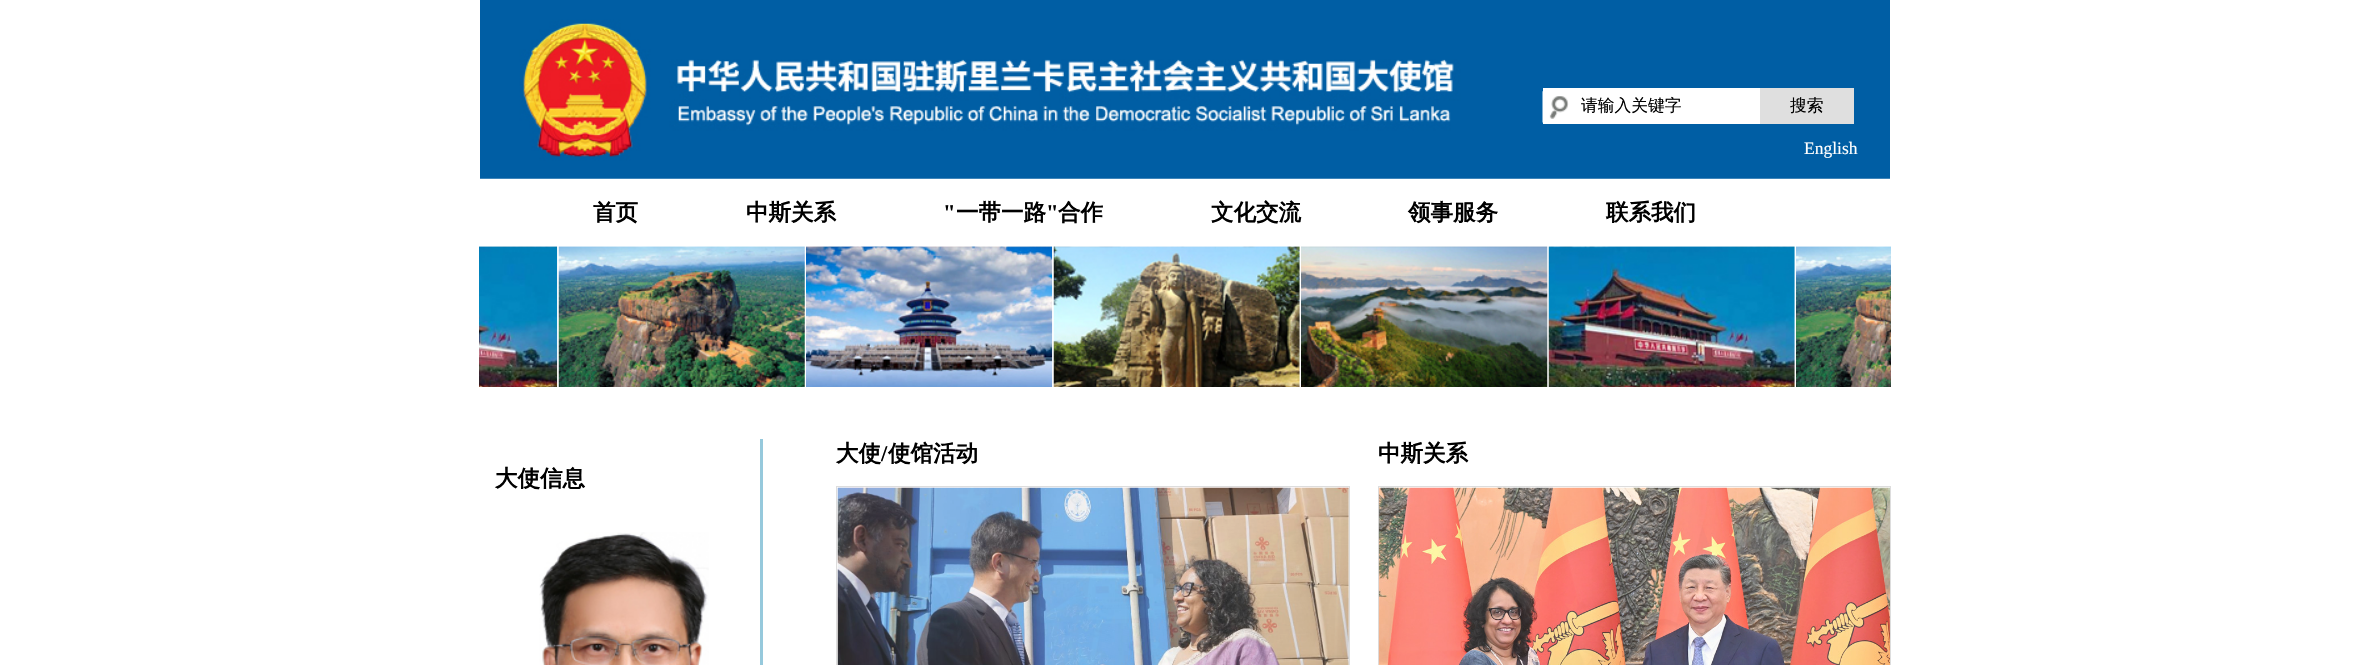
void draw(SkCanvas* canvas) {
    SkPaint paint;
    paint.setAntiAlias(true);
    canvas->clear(0xFFFFFFFF);
    canvas->drawImageRect(SkImages::DeferredFromEncodedData(SkData::MakeFromFileName("img1.png")), SkRect::MakeXYWH(480, 0, 1410, 179), SkSamplingOptions());
    paint.setColor(0xFFFFFFFF);
    canvas->drawRect(SkRect::MakeXYWH(1543, 88, 217, 36), paint);
    canvas->drawImageRect(SkImages::DeferredFromEncodedData(SkData::MakeFromFileName("img2.png")), SkRect::MakeXYWH(1542, 91, 27, 32), SkSamplingOptions());
    SkFont font1(fontMgr->matchFamilyStyle("WenQuanYi Zen Hei", SkFontStyle(500, SkFontStyle::kNormal_Width, SkFontStyle::kUpright_Slant)), 16.75f);
    font1.setSubpixel(true);
    paint.setColor(0xFF000000);
    canvas->drawString("请输入关键字", 1581, 111, font1, paint);
    paint.setColor(0xFFDFDFDF);
    canvas->drawRect(SkRect::MakeXYWH(1760, 88, 94, 36), paint);
    paint.setColor(0xFF000000);
    canvas->drawString("搜索", 1790, 111, font1, paint);
    SkFont font2(fontMgr->matchFamilyStyle("Liberation Serif", SkFontStyle::Normal()), 17.5f);
    font2.setSubpixel(true);
    paint.setColor(0xFFFFFFFF);
    canvas->drawString("English", 1804, 154, font2, paint);
    SkFont font3(fontMgr->matchFamilyStyle("WenQuanYi Zen Hei", SkFontStyle::Bold()), 22.5f);
    font3.setSubpixel(true);
    paint.setColor(0xFF000000);
    canvas->drawString("首页", 593, 220, font3, paint);
    canvas->drawString("中斯关系", 746, 220, font3, paint);
    SkFont font4(fontMgr->matchFamilyStyle("Liberation Serif", SkFontStyle::Bold()), 22.5f);
    font4.setSubpixel(true);
    canvas->drawString("\"", 943, 220, font4, paint);
    canvas->drawString("一带一路", 956, 220, font3, paint);
    canvas->drawString("\"", 1046, 220, font4, paint);
    canvas->drawString("合作", 1058, 220, font3, paint);
    canvas->drawString("文化交流", 1211, 220, font3, paint);
    canvas->drawString("领事服务", 1408, 220, font3, paint);
    canvas->drawString("联系我们", 1606, 220, font3, paint);
    canvas->drawImageRect(SkImages::DeferredFromEncodedData(SkData::MakeFromFileName("img3.png")), SkRect::MakeXYWH(479, 246, 1412, 141), SkSamplingOptions());
    canvas->drawString("大使", 836, 461, font3, paint);
    canvas->drawString("/", 881, 461, font4, paint);
    canvas->drawString("使馆活动", 888, 461, font3, paint);
    paint.setStyle(SkPaint::kStroke_Style);
    paint.setStrokeWidth(1);
    paint.setColor(0xFFDDDDDD);
    canvas->drawRect(SkRect::MakeXYWH(836.5f, 486.5f, 513, 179), paint);
    canvas->drawImageRect(SkImages::DeferredFromEncodedData(SkData::MakeFromFileName("img4.png")), SkRect::MakeXYWH(837, 487, 512, 178), SkSamplingOptions());
    canvas->drawImageRect(SkImages::DeferredFromEncodedData(SkData::MakeFromFileName("img5.png")), SkRect::MakeXYWH(837, 487, 512, 178), SkSamplingOptions());
    paint.setStyle(SkPaint::kFill_Style);
    paint.setColor(0xFF000000);
    canvas->drawString("中斯关系", 1378, 461, font3, paint);
    paint.setStyle(SkPaint::kStroke_Style);
    paint.setColor(0xFFDDDDDD);
    canvas->drawRect(SkRect::MakeXYWH(1378.5f, 486.5f, 512, 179), paint);
    canvas->drawImageRect(SkImages::DeferredFromEncodedData(SkData::MakeFromFileName("img7.png")), SkRect::MakeXYWH(1379, 487, 511, 178), SkSamplingOptions());
    canvas->drawImageRect(SkImages::DeferredFromEncodedData(SkData::MakeFromFileName("img6.png")), SkRect::MakeXYWH(1378, 487, 512, 178), SkSamplingOptions());
    paint.setStyle(SkPaint::kFill_Style);
    paint.setColor(0xFF96C9DC);
    canvas->drawRect(SkRect::MakeXYWH(760, 439, 3, 226), paint);
    paint.setColor(0xFF000000);
    canvas->drawString("大使信息", 495, 486, font3, paint);
    canvas->drawImageRect(SkImages::DeferredFromEncodedData(SkData::MakeFromFileName("img8.png")), SkRect::MakeXYWH(539, 532, 170, 133), SkSamplingOptions());
}
